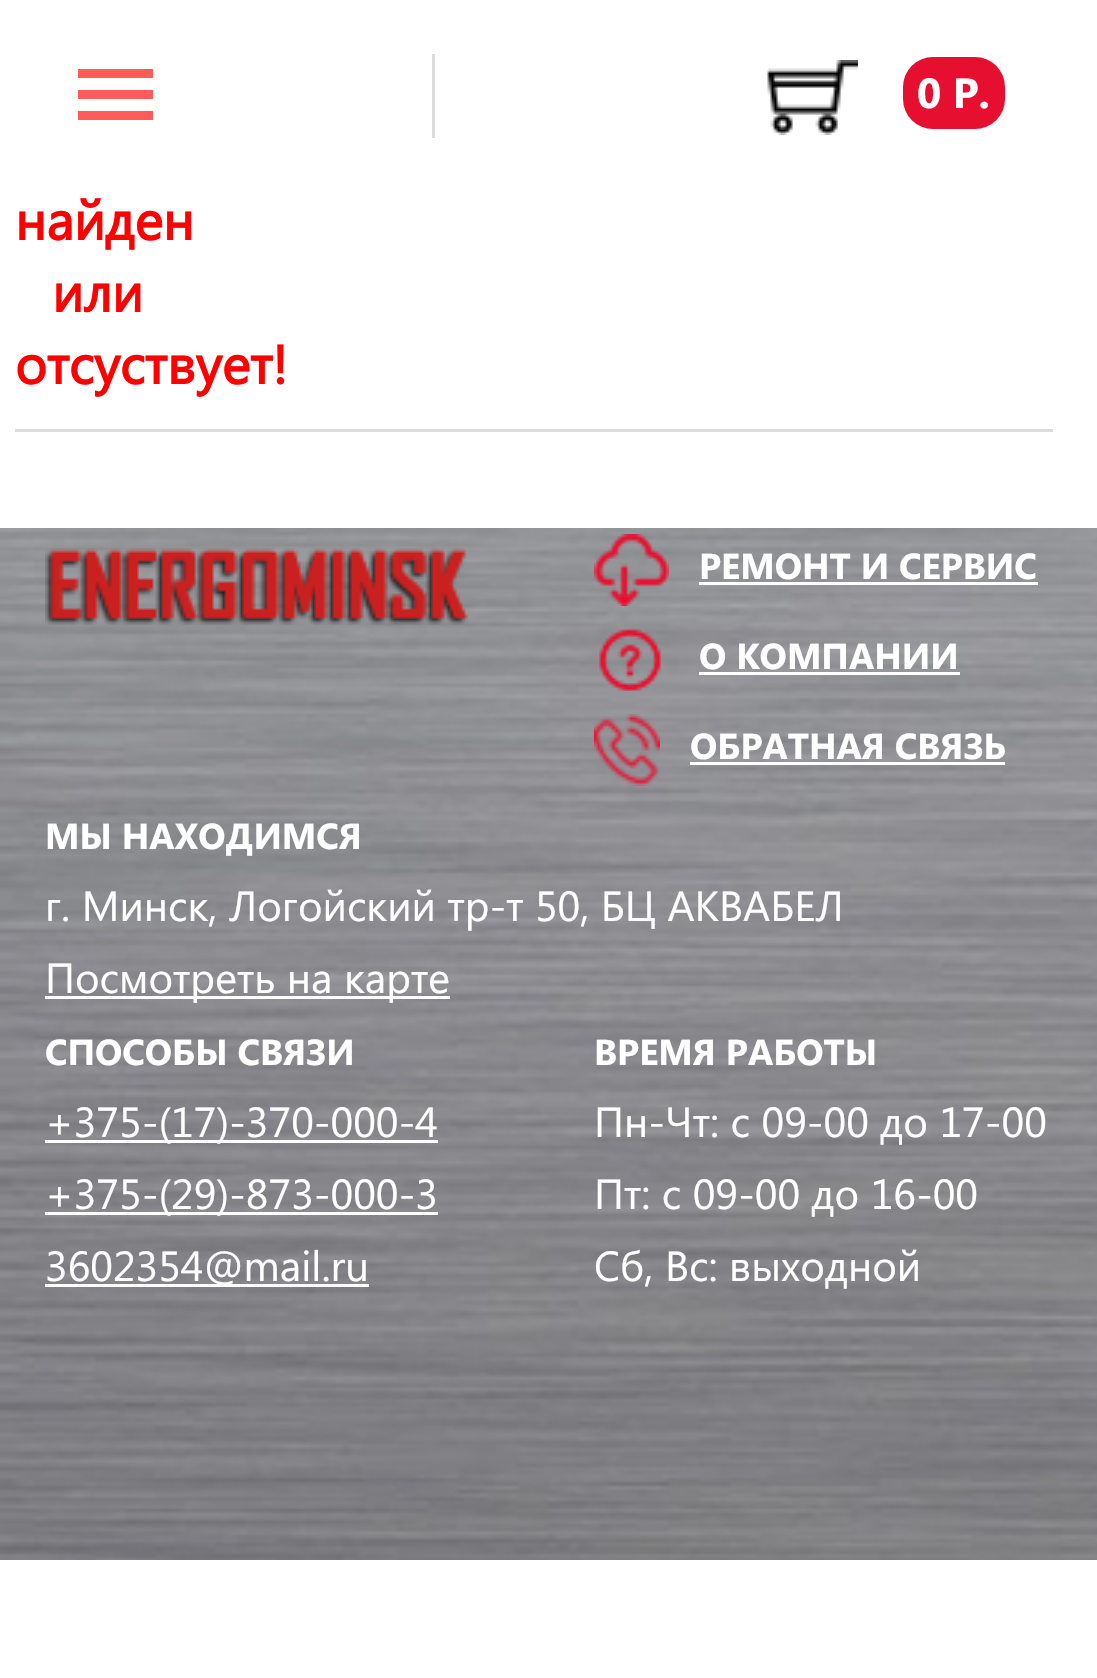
void draw(SkCanvas* canvas) {
    SkPaint paint;
    paint.setAntiAlias(true);
    canvas->clear(0xFFFFFFFF);
    paint.setColor(0xFFFF5B5B);
    canvas->drawRect(SkRect::MakeXYWH(78, 69, 75, 9), paint);
    canvas->drawRect(SkRect::MakeXYWH(78, 90, 75, 9), paint);
    canvas->drawRect(SkRect::MakeXYWH(78, 111, 75, 9), paint);
    paint.setColor(0xFFDCDCDC);
    canvas->drawRect(SkRect::MakeXYWH(432, 54, 3, 84), paint);
    canvas->drawImageRect(SkImages::DeferredFromEncodedData(SkData::MakeFromFileName("img1.png")), SkRect::MakeXYWH(767, 60, 91, 75), SkSamplingOptions());
    paint.setColor(0xFFE60F2F);
    canvas->drawRoundRect(SkRect::MakeXYWH(903, 57, 102, 72), 30, 30, paint);
    SkFont font1(fontMgr->matchFamilyStyle("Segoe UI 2", SkFontStyle::Bold()), 42);
    font1.setSubpixel(true);
    paint.setColor(0xFFFFFFFF);
    canvas->drawString("0 Р.", 917, 108, font1, paint);
    paint.setColor(0xFFDCDCDC);
    canvas->drawRect(SkRect::MakeXYWH(15, 429, 1038, 3), paint);
    SkFont font2(fontMgr->matchFamilyStyle("Segoe UI", SkFontStyle::Bold()), 54);
    font2.setSubpixel(true);
    paint.setColor(0xFFFF0000);
    canvas->drawString("найден", 15, 240, font2, paint);
    canvas->drawString("или", 52, 312, font2, paint);
    canvas->drawString("отсуствует!", 15, 384, font2, paint);
    canvas->drawImageRect(SkImages::DeferredFromEncodedData(SkData::MakeFromFileName("img2.png")), SkRect::MakeXYWH(0, 528, 1097, 1032), SkSamplingOptions());
    canvas->drawImageRect(SkImages::DeferredFromEncodedData(SkData::MakeFromFileName("img3.png")), SkRect::MakeXYWH(45, 548, 423, 77), SkSamplingOptions());
    canvas->drawImageRect(SkImages::DeferredFromEncodedData(SkData::MakeFromFileName("img4.png")), SkRect::MakeXYWH(594, 534, 75, 72), SkSamplingOptions());
    SkFont font3(fontMgr->matchFamilyStyle("Segoe UI 2", SkFontStyle::Bold()), 36);
    font3.setSubpixel(true);
    paint.setColor(0xFFFFFFFF);
    canvas->drawString("РЕМОНТ И СЕРВИС", 699, 579, font3, paint);
    canvas->drawRect(SkRect::MakeXYWH(699, 582, 339, 3), paint);
    canvas->drawImageRect(SkImages::DeferredFromEncodedData(SkData::MakeFromFileName("img5.png")), SkRect::MakeXYWH(599, 629, 62, 62), SkSamplingOptions());
    canvas->drawString("О КОМПАНИИ", 699, 669, font3, paint);
    canvas->drawRect(SkRect::MakeXYWH(699, 672, 261, 3), paint);
    canvas->drawImageRect(SkImages::DeferredFromEncodedData(SkData::MakeFromFileName("img6.png")), SkRect::MakeXYWH(594, 714, 66, 72), SkSamplingOptions());
    canvas->drawString("ОБРАТНАЯ СВЯЗЬ", 690, 759, font3, paint);
    canvas->drawRect(SkRect::MakeXYWH(690, 762, 315, 3), paint);
    canvas->drawString("МЫ НАХОДИМСЯ", 45, 849, font3, paint);
    SkFont font4(fontMgr->matchFamilyStyle("Segoe UI", SkFontStyle::Normal()), 42);
    font4.setSubpixel(true);
    canvas->drawString("г. Минск, Логойский тр-т 50, БЦ АКВАБЕЛ", 45, 921, font4, paint);
    canvas->drawRect(SkRect::MakeXYWH(45, 996, 405, 3), paint);
    canvas->drawString("Посмотреть на карте", 45, 993, font4, paint);
    canvas->drawString("СПОСОБЫ СВЯЗИ", 45, 1065, font3, paint);
    canvas->drawRect(SkRect::MakeXYWH(45, 1140, 393, 3), paint);
    canvas->drawString("+375-(17)-370-000-4", 45, 1137, font4, paint);
    canvas->drawRect(SkRect::MakeXYWH(45, 1212, 393, 3), paint);
    canvas->drawString("+375-(29)-873-000-3", 45, 1209, font4, paint);
    canvas->drawRect(SkRect::MakeXYWH(45, 1284, 324, 3), paint);
    canvas->drawString("3602354@mail.ru", 45, 1281, font4, paint);
    canvas->drawString("ВРЕМЯ РАБОТЫ", 594, 1065, font3, paint);
    canvas->drawString("Пн-Чт: с 09-00 до 17-00", 594, 1137, font4, paint);
    canvas->drawString("Пт: с 09-00 до 16-00", 594, 1209, font4, paint);
    canvas->drawString("Сб, Вс: выходной", 594, 1281, font4, paint);
}
